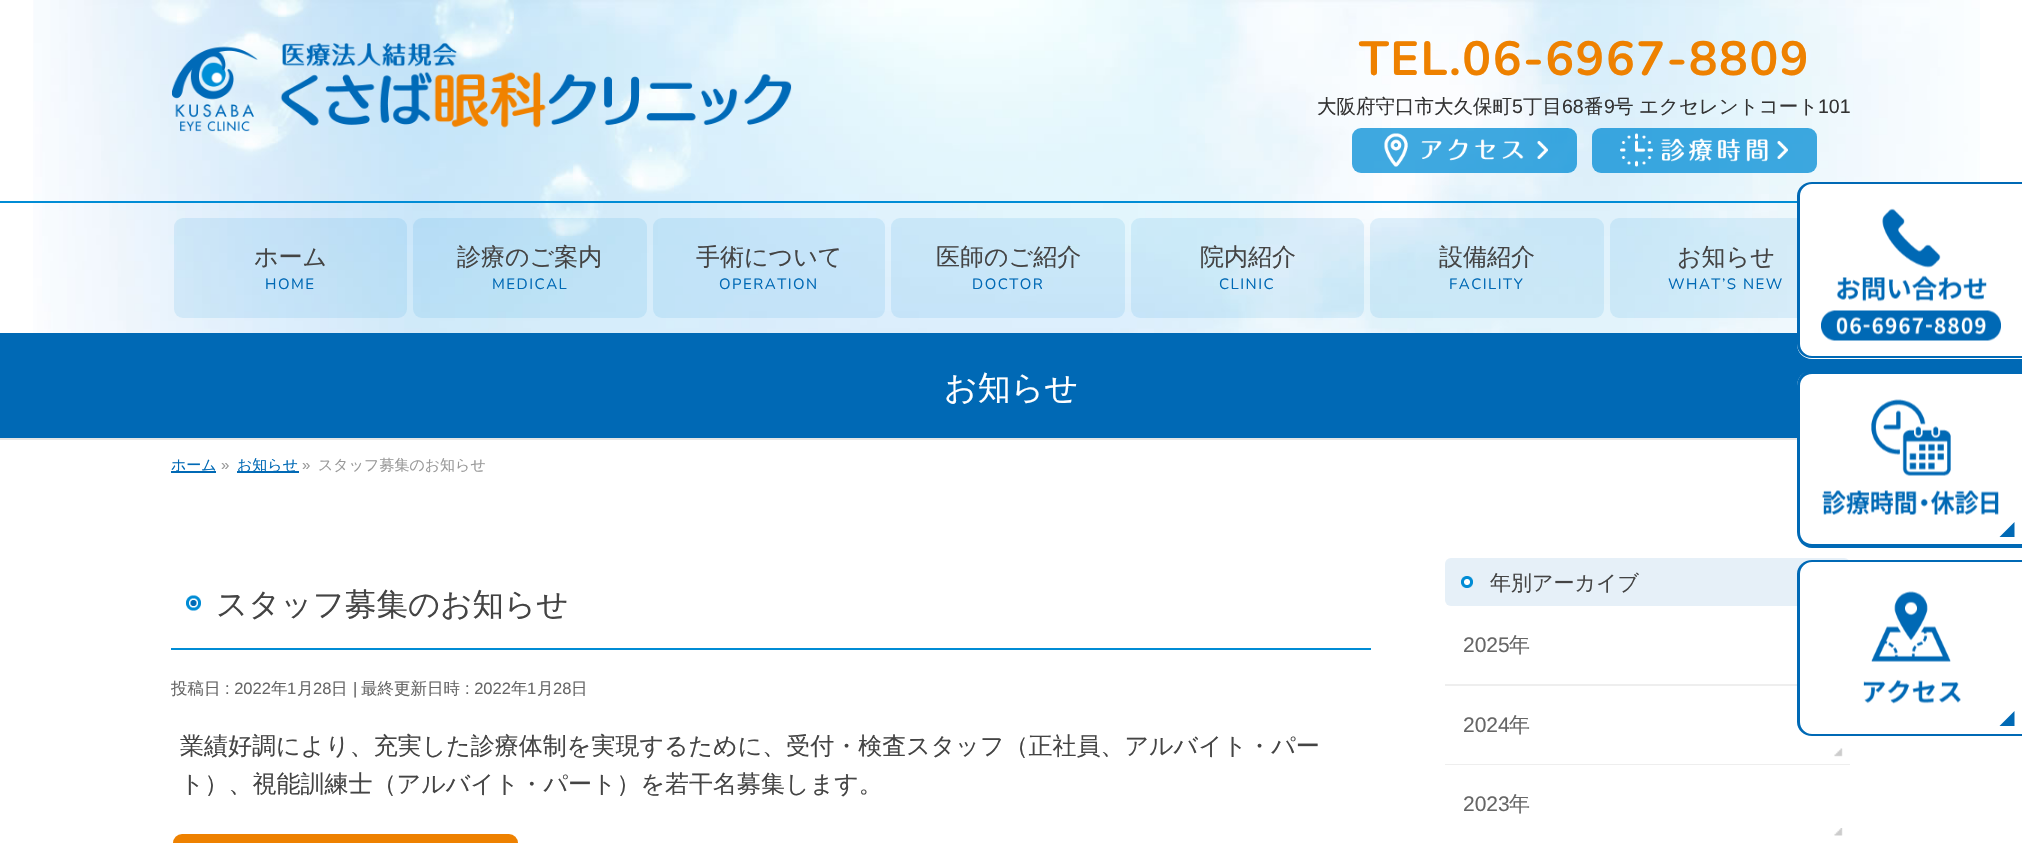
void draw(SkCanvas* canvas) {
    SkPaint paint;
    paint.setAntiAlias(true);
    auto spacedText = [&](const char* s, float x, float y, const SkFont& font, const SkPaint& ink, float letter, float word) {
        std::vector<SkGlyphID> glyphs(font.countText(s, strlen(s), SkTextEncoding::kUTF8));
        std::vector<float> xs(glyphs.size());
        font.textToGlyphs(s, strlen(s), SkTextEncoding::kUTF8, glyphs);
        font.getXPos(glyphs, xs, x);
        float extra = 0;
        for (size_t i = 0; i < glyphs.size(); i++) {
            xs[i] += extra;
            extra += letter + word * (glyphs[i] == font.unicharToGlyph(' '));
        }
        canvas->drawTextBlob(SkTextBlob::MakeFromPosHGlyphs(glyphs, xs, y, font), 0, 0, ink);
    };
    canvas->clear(0xFFFFFFFF);
    canvas->drawImageRect(SkImages::DeferredFromEncodedData(SkData::MakeFromFileName("img1.png")), SkRect::MakeXYWH(33, 0, 1947, 333), SkSamplingOptions());
    paint.setColor(0xFF008CD5);
    canvas->drawRect(SkRect::MakeXYWH(0, 201, 1797, 2), paint);
    canvas->drawImageRect(SkImages::DeferredFromEncodedData(SkData::MakeFromFileName("img2.png")), SkRect::MakeXYWH(171, 43, 621, 89), SkSamplingOptions());
    SkFont font1(fontMgr->matchFamilyStyle("Nunito", SkFontStyle::Bold()), 48);
    font1.setSubpixel(true);
    paint.setColor(0xFFEE8100);
    spacedText("TEL.06-6967-8809", 1359, 75, font1, paint, 1.5f, 0);
    SkFont font2(fontMgr->matchFamilyStyle("WenQuanYi Zen Hei", SkFontStyle(500, SkFontStyle::kNormal_Width, SkFontStyle::kUpright_Slant)), 19.5f);
    font2.setSubpixel(true);
    paint.setColor(0xFF333333);
    canvas->drawString("大阪府守口市大久保町", 1317, 113, font2, paint);
    SkFont font3(fontMgr->matchFamilyStyle("Liberation Sans", SkFontStyle::Normal()), 19.5f);
    font3.setSubpixel(true);
    canvas->drawString("5", 1512, 113, font3, paint);
    canvas->drawString("丁目", 1523, 113, font2, paint);
    canvas->drawString("68", 1562, 113, font3, paint);
    canvas->drawString("番", 1584, 113, font2, paint);
    canvas->drawString("9", 1604, 113, font3, paint);
    canvas->drawString("号", 1614, 113, font2, paint);
    canvas->drawString("エクセレントコート", 1639, 113, font2, paint);
    canvas->drawString("101", 1818, 113, font3, paint);
    paint.setColor(0xBF008CD5);
    canvas->drawRoundRect(SkRect::MakeXYWH(1352, 128, 225, 45), 9, 9, paint);
    canvas->drawImageRect(SkImages::DeferredFromEncodedData(SkData::MakeFromFileName("img3.png")), SkRect::MakeXYWH(1384, 133, 164, 34), SkSamplingOptions());
    canvas->drawRoundRect(SkRect::MakeXYWH(1592, 128, 225, 45), 9, 9, paint);
    canvas->drawImageRect(SkImages::DeferredFromEncodedData(SkData::MakeFromFileName("img4.png")), SkRect::MakeXYWH(1620, 133, 168, 34), SkSamplingOptions());
    paint.setColor(0x1A008CD5);
    canvas->drawRoundRect(SkRect::MakeXYWH(174, 218, 233, 100), 9, 9, paint);
    SkFont font4(fontMgr->matchFamilyStyle("WenQuanYi Zen Hei", SkFontStyle(500, SkFontStyle::kNormal_Width, SkFontStyle::kUpright_Slant)), 24);
    font4.setSubpixel(true);
    paint.setColor(0xFF444444);
    canvas->drawString("ホーム", 254, 265, font4, paint);
    SkFont font5(fontMgr->matchFamilyStyle("Nunito", SkFontStyle::Normal()), 15);
    font5.setSubpixel(true);
    paint.setColor(0xFF0069B5);
    spacedText("HOME", 265, 289, font5, paint, 1.5f, 0);
    paint.setColor(0x1A008CD5);
    canvas->drawRoundRect(SkRect::MakeXYWH(413, 218, 234, 100), 9, 9, paint);
    paint.setColor(0xFF444444);
    canvas->drawString("診療のご案内", 457, 265, font4, paint);
    paint.setColor(0xFF0069B5);
    spacedText("MEDICAL", 492, 289, font5, paint, 1.5f, 0);
    paint.setColor(0x1A008CD5);
    canvas->drawRoundRect(SkRect::MakeXYWH(653, 218, 232, 100), 9, 9, paint);
    paint.setColor(0xFF444444);
    canvas->drawString("手術について", 696, 265, font4, paint);
    paint.setColor(0xFF0069B5);
    spacedText("OPERATION", 719, 289, font5, paint, 1.5f, 0);
    paint.setColor(0x1A008CD5);
    canvas->drawRoundRect(SkRect::MakeXYWH(891, 218, 234, 100), 9, 9, paint);
    paint.setColor(0xFF444444);
    canvas->drawString("医師のご紹介", 936, 265, font4, paint);
    paint.setColor(0xFF0069B5);
    spacedText("DOCTOR", 972, 289, font5, paint, 1.5f, 0);
    paint.setColor(0x1A008CD5);
    canvas->drawRoundRect(SkRect::MakeXYWH(1131, 218, 233, 100), 9, 9, paint);
    paint.setColor(0xFF444444);
    canvas->drawString("院内紹介", 1200, 265, font4, paint);
    paint.setColor(0xFF0069B5);
    spacedText("CLINIC", 1219, 289, font5, paint, 1.5f, 0);
    paint.setColor(0x1A008CD5);
    canvas->drawRoundRect(SkRect::MakeXYWH(1370, 218, 234, 100), 9, 9, paint);
    paint.setColor(0xFF444444);
    canvas->drawString("設備紹介", 1439, 265, font4, paint);
    paint.setColor(0xFF0069B5);
    spacedText("FACILITY", 1449, 289, font5, paint, 1.5f, 0);
    paint.setColor(0x1A008CD5);
    canvas->drawRoundRect(SkRect::MakeXYWH(1610, 218, 232, 100), 9, 9, paint);
    paint.setColor(0xFF444444);
    canvas->drawString("お知らせ", 1677, 265, font4, paint);
    paint.setColor(0xFF0069B5);
    spacedText("WHAT’S NEW", 1668, 289, font5, paint, 1.5f, 0);
    canvas->drawRect(SkRect::MakeXYWH(0, 333, 2022, 105), paint);
    paint.setColor(0xFFE5E5E5);
    canvas->drawRect(SkRect::MakeXYWH(0, 438, 1797, 2), paint);
    SkFont font6(fontMgr->matchFamilyStyle("WenQuanYi Zen Hei", SkFontStyle(500, SkFontStyle::kNormal_Width, SkFontStyle::kUpright_Slant)), 33);
    font6.setSubpixel(true);
    paint.setColor(0xFFFFFFFF);
    canvas->drawString("お知らせ", 944, 399, font6, paint);
    paint.setColor(0xFF0069B5);
    canvas->drawRect(SkRect::MakeXYWH(171, 471, 45, 2), paint);
    SkFont font7(fontMgr->matchFamilyStyle("WenQuanYi Zen Hei", SkFontStyle(500, SkFontStyle::kNormal_Width, SkFontStyle::kUpright_Slant)), 15);
    font7.setSubpixel(true);
    canvas->drawString("ホーム", 171, 470, font7, paint);
    SkFont font8(fontMgr->matchFamilyStyle("Liberation Sans", SkFontStyle::Normal()), 15);
    font8.setSubpixel(true);
    paint.setColor(0xFF999999);
    canvas->drawString("»", 221, 470, font8, paint);
    paint.setColor(0xFF0069B5);
    canvas->drawRect(SkRect::MakeXYWH(237, 471, 62, 2), paint);
    canvas->drawString("お知らせ", 237, 470, font7, paint);
    paint.setColor(0xFF999999);
    canvas->drawString("»", 302, 470, font8, paint);
    canvas->drawString("スタッフ募集のお知らせ", 318, 470, font7, paint);
    canvas->drawImageRect(SkImages::DeferredFromEncodedData(SkData::MakeFromFileName("img5.png")), SkRect::MakeXYWH(186, 595, 15, 16), SkSamplingOptions());
    paint.setColor(0xFF008CD5);
    canvas->drawRect(SkRect::MakeXYWH(171, 648, 1200, 2), paint);
    SkFont font9(fontMgr->matchFamilyStyle("WenQuanYi Zen Hei", SkFontStyle(500, SkFontStyle::kNormal_Width, SkFontStyle::kUpright_Slant)), 31.5f);
    font9.setSubpixel(true);
    paint.setColor(0xFF444444);
    canvas->drawString("スタッフ募集のお知らせ", 216, 615, font9, paint);
    SkFont font10(fontMgr->matchFamilyStyle("WenQuanYi Zen Hei", SkFontStyle(500, SkFontStyle::kNormal_Width, SkFontStyle::kUpright_Slant)), 16.5f);
    font10.setSubpixel(true);
    paint.setColor(0xFF666666);
    canvas->drawString("投稿日", 171, 694, font10, paint);
    SkFont font11(fontMgr->matchFamilyStyle("Liberation Sans", SkFontStyle::Normal()), 16.5f);
    font11.setSubpixel(true);
    canvas->drawString(": 2022", 225, 694, font11, paint);
    canvas->drawString("年", 271, 694, font10, paint);
    canvas->drawString("1", 287, 694, font11, paint);
    canvas->drawString("月", 297, 694, font10, paint);
    canvas->drawString("28", 313, 694, font11, paint);
    canvas->drawString("日", 331, 694, font10, paint);
    canvas->drawString("|", 353, 694, font11, paint);
    canvas->drawString("最終更新日時", 361, 694, font10, paint);
    canvas->drawString(": 2022", 465, 694, font11, paint);
    canvas->drawString("年", 511, 694, font10, paint);
    canvas->drawString("1", 527, 694, font11, paint);
    canvas->drawString("月", 537, 694, font10, paint);
    canvas->drawString("28", 553, 694, font11, paint);
    canvas->drawString("日", 571, 694, font10, paint);
    paint.setColor(0xFF444444);
    canvas->drawString("業績好調により、充実した診療体制を実現するために、受付・検査スタッフ（正社員、アルバイト・パー", 180, 754, font4, paint);
    canvas->drawString("ト）、視能訓練士（アルバイト・パート）を若干名募集します。", 180, 792, font4, paint);
    paint.setColor(0xFFEE8100);
    canvas->drawRoundRect(SkRect::MakeXYWH(173, 834, 345, 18), 9, 9, paint);
    paint.setColor(0xFFE6F0F8);
    canvas->drawRoundRect(SkRect::MakeXYWH(1445, 558, 405, 48), 6, 6, paint);
    canvas->drawImageRect(SkImages::DeferredFromEncodedData(SkData::MakeFromFileName("img6.png")), SkRect::MakeXYWH(1461, 576, 12, 12), SkSamplingOptions());
    SkFont font12(fontMgr->matchFamilyStyle("WenQuanYi Zen Hei", SkFontStyle(500, SkFontStyle::kNormal_Width, SkFontStyle::kUpright_Slant)), 21);
    font12.setSubpixel(true);
    paint.setColor(0xFF444444);
    canvas->drawString("年別アーカイブ", 1490, 590, font12, paint);
    paint.setColor(0xFFEEEEEE);
    canvas->drawRect(SkRect::MakeXYWH(1445, 684, 352, 2), paint);
    SkFont font13(fontMgr->matchFamilyStyle("Liberation Sans", SkFontStyle::Normal()), 21);
    font13.setSubpixel(true);
    paint.setColor(0xFF666666);
    canvas->drawString("2025", 1463, 652, font13, paint);
    canvas->drawString("年", 1509, 652, font12, paint);
    paint.setColor(0xFFEEEEEE);
    canvas->drawRect(SkRect::MakeXYWH(1445, 764, 405, 1), paint);
    canvas->drawImageRect(SkImages::DeferredFromEncodedData(SkData::MakeFromFileName("img7.png")), SkRect::MakeXYWH(1834, 748, 9, 9), SkSamplingOptions());
    paint.setColor(0xFF666666);
    canvas->drawString("2024", 1463, 732, font13, paint);
    canvas->drawString("年", 1509, 732, font12, paint);
    canvas->drawImageRect(SkImages::DeferredFromEncodedData(SkData::MakeFromFileName("img8.png")), SkRect::MakeXYWH(1834, 828, 9, 8), SkSamplingOptions());
    canvas->drawString("2023", 1463, 811, font13, paint);
    canvas->drawString("年", 1509, 811, font12, paint);
    paint.setColor(0xFFFFFFFF);
    canvas->drawPath(SkPathBuilder().moveTo(1812, 182).lineTo(2022, 182).lineTo(2022, 359).lineTo(1812, 359).cubicTo(1803.5f, 359, 1797, 352.5f, 1797, 344).lineTo(1797, 197).cubicTo(1797, 188.5f, 1803.5f, 182, 1812, 182).close().detach(), paint);
    paint.setColor(0xFF0069B5);
    canvas->drawPath(SkPathBuilder(SkPathFillType::kEvenOdd).moveTo(1812, 182).lineTo(2022, 182).lineTo(2022, 358).lineTo(1812, 358).cubicTo(1804, 358, 1797, 352, 1797, 344).lineTo(1797, 196).cubicTo(1797, 188, 1804, 182, 1812, 182).close().moveTo(1812, 184).lineTo(2022, 184).lineTo(2022, 356).lineTo(1812, 356).cubicTo(1805, 356, 1800, 350, 1800, 344).lineTo(1800, 196).cubicTo(1800, 190, 1805, 184, 1812, 184).close().detach(), paint);
    canvas->drawImageRect(SkImages::DeferredFromEncodedData(SkData::MakeFromFileName("img9.png")), SkRect::MakeXYWH(1821, 208, 180, 133), SkSamplingOptions());
    paint.setColor(0xFFFFFFFF);
    canvas->drawPath(SkPathBuilder().moveTo(1812, 371).lineTo(2022, 371).lineTo(2022, 548).lineTo(1812, 548).cubicTo(1803.5f, 548, 1797, 541.5f, 1797, 533).lineTo(1797, 386).cubicTo(1797, 377.5f, 1803.5f, 371, 1812, 371).close().detach(), paint);
    paint.setColor(0xFF0069B5);
    canvas->drawPath(SkPathBuilder().moveTo(2014.5f, 522).lineTo(2014.5f, 537).lineTo(1999.5f, 537).close().detach(), paint);
    canvas->drawPath(SkPathBuilder(SkPathFillType::kEvenOdd).moveTo(1812, 370).lineTo(2022, 370).lineTo(2022, 548).lineTo(1812, 548).cubicTo(1804, 548, 1797, 541, 1797, 532).lineTo(1797, 386).cubicTo(1797, 377, 1804, 370, 1812, 370).close().moveTo(1812, 374).lineTo(2022, 374).lineTo(2022, 544).lineTo(1812, 544).cubicTo(1805, 544, 1800, 539, 1800, 532).lineTo(1800, 386).cubicTo(1800, 379, 1805, 374, 1812, 374).close().detach(), paint);
    canvas->drawImageRect(SkImages::DeferredFromEncodedData(SkData::MakeFromFileName("img10.png")), SkRect::MakeXYWH(1822, 399, 177, 116), SkSamplingOptions());
    paint.setColor(0xFFFFFFFF);
    canvas->drawPath(SkPathBuilder().moveTo(1812, 560).lineTo(2022, 560).lineTo(2022, 737).lineTo(1812, 737).cubicTo(1803.5f, 737, 1797, 730.5f, 1797, 722).lineTo(1797, 575).cubicTo(1797, 566.5f, 1803.5f, 560, 1812, 560).close().detach(), paint);
    paint.setColor(0xFF0069B5);
    canvas->drawPath(SkPathBuilder().moveTo(2014.5f, 711).lineTo(2014.5f, 726).lineTo(1999.5f, 726).close().detach(), paint);
    canvas->drawPath(SkPathBuilder(SkPathFillType::kEvenOdd).moveTo(1812, 560).lineTo(2022, 560).lineTo(2022, 736).lineTo(1812, 736).cubicTo(1804, 736, 1797, 730, 1797, 722).lineTo(1797, 574).cubicTo(1797, 566, 1804, 560, 1812, 560).close().moveTo(1812, 562).lineTo(2022, 562).lineTo(2022, 734).lineTo(1812, 734).cubicTo(1805, 734, 1800, 728, 1800, 722).lineTo(1800, 574).cubicTo(1800, 568, 1805, 562, 1812, 562).close().detach(), paint);
    canvas->drawImageRect(SkImages::DeferredFromEncodedData(SkData::MakeFromFileName("img11.png")), SkRect::MakeXYWH(1863, 591, 98, 113), SkSamplingOptions());
}
